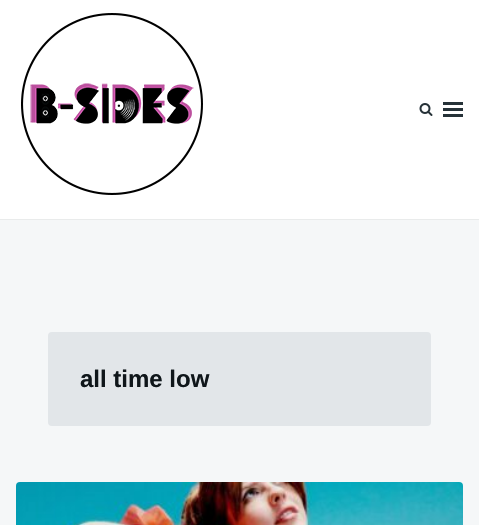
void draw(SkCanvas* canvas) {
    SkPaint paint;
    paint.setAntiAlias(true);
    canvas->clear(0xFFF5F7F8);
    paint.setColor(0xFFFFFFFF);
    canvas->drawRect(SkRect::MakeXYWH(0, 0, 479, 219), paint);
    paint.setColor(0xFFE9EBEB);
    canvas->drawRect(SkRect::MakeXYWH(0, 219, 479, 1), paint);
    canvas->drawImageRect(SkImages::DeferredFromEncodedData(SkData::MakeFromFileName("img1.png")), SkRect::MakeXYWH(21, 13, 182, 182), SkSamplingOptions());
    canvas->drawImageRect(SkImages::DeferredFromEncodedData(SkData::MakeFromFileName("img2.png")), SkRect::MakeXYWH(419, 103, 14, 13), SkSamplingOptions());
    paint.setColor(0xFF263238);
    canvas->drawRect(SkRect::MakeXYWH(443, 102, 20, 3), paint);
    canvas->drawRect(SkRect::MakeXYWH(443, 108, 20, 3), paint);
    canvas->drawRect(SkRect::MakeXYWH(443, 114, 20, 3), paint);
    paint.setColor(0xFFE2E6E9);
    canvas->drawRoundRect(SkRect::MakeXYWH(48, 332, 383, 94), 4, 4, paint);
    SkFont font1(fontMgr->matchFamilyStyle("Liberation Sans", SkFontStyle::Bold()), 24);
    font1.setSubpixel(true);
    paint.setColor(0xFF0F161A);
    canvas->drawString("all time low", 80, 387, font1, paint);
    canvas->drawImageRect(SkImages::DeferredFromEncodedData(SkData::MakeFromFileName("img3.png")), SkRect::MakeXYWH(16, 482, 447, 43), SkSamplingOptions());
}
